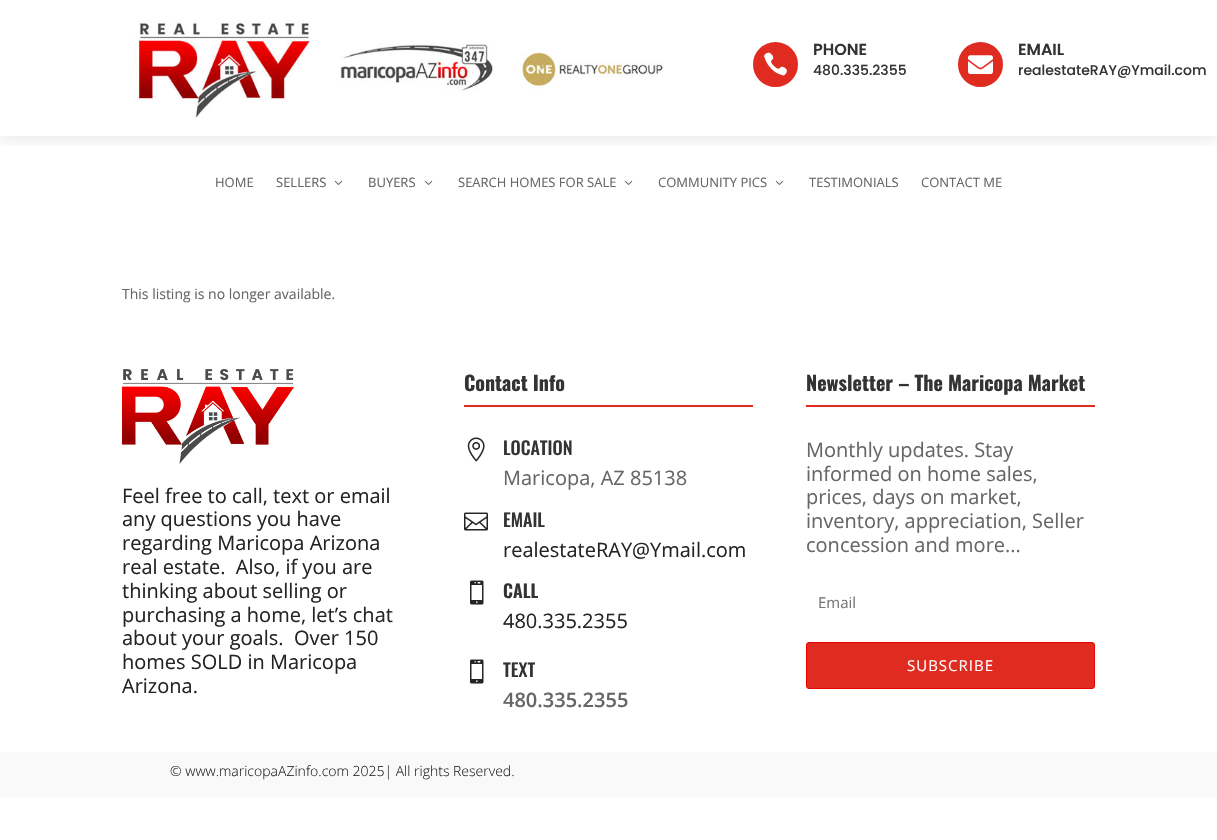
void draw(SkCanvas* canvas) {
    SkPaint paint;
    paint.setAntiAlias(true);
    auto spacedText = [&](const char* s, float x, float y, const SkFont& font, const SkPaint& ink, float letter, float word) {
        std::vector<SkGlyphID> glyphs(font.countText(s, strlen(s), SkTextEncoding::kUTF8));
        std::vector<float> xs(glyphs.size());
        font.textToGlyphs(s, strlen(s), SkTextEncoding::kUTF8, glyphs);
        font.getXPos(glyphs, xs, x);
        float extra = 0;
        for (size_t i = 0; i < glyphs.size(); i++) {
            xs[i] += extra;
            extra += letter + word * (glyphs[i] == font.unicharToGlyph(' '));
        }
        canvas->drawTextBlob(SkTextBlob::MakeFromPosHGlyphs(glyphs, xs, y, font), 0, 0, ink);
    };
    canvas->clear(0xFFFFFFFF);
    canvas->save();
    canvas->clipRect(SkRect::MakeXYWH(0, 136, 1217, 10));
    paint.setColor(0x1A000000);
    paint.setMaskFilter(SkMaskFilter::MakeBlur(kNormal_SkBlurStyle, 9));
    canvas->drawRect(SkRect::MakeXYWH(0, 2, 1217, 136), paint);
    paint.setMaskFilter(nullptr);
    canvas->restore();
    canvas->drawImageRect(SkImages::DeferredFromEncodedData(SkData::MakeFromFileName("img1.png")), SkRect::MakeXYWH(134, 20, 529, 98), SkSamplingOptions());
    paint.setColor(0xFFE02B20);
    canvas->drawCircle(775.5f, 64.5f, 21.5f, paint);
    paint.setStyle(SkPaint::kStroke_Style);
    paint.setStrokeWidth(2);
    canvas->drawCircle(775.5f, 64.5f, 21.5f, paint);
    canvas->drawImageRect(SkImages::DeferredFromEncodedData(SkData::MakeFromFileName("img2.png")), SkRect::MakeXYWH(764, 52, 23, 24), SkSamplingOptions());
    SkFont font1(fontMgr->matchFamilyStyle("Poppins", SkFontStyle(600, SkFontStyle::kNormal_Width, SkFontStyle::kUpright_Slant)), 16);
    font1.setSubpixel(true);
    paint.setStyle(SkPaint::kFill_Style);
    paint.setColor(0xFF333333);
    canvas->drawString("PHONE", 813, 55, font1, paint);
    SkFont font2(fontMgr->matchFamilyStyle("Poppins", SkFontStyle(500, SkFontStyle::kNormal_Width, SkFontStyle::kUpright_Slant)), 14);
    font2.setSubpixel(true);
    canvas->drawString("480.335.2355", 813, 75, font2, paint);
    paint.setColor(0xFFE02B20);
    canvas->drawCircle(980.5f, 64.5f, 21.5f, paint);
    paint.setStyle(SkPaint::kStroke_Style);
    canvas->drawCircle(980.5f, 64.5f, 21.5f, paint);
    canvas->drawImageRect(SkImages::DeferredFromEncodedData(SkData::MakeFromFileName("img3.png")), SkRect::MakeXYWH(968, 55, 25, 19), SkSamplingOptions());
    paint.setStyle(SkPaint::kFill_Style);
    paint.setColor(0xFF333333);
    canvas->drawString("EMAIL", 1018, 55, font1, paint);
    canvas->drawString("realestateRAY@Ymail.com", 1018, 75, font2, paint);
    SkFont font3(fontMgr->matchFamilyStyle("Open Sans", SkFontStyle::Normal()), 13);
    font3.setSubpixel(true);
    paint.setColor(0xFF666666);
    canvas->drawString("HOME", 215, 187, font3, paint);
    canvas->drawString("SELLERS", 276, 187, font3, paint);
    canvas->drawImageRect(SkImages::DeferredFromEncodedData(SkData::MakeFromFileName("img4.png")), SkRect::MakeXYWH(334, 180, 9, 5), SkSamplingOptions());
    canvas->drawString("BUYERS", 368, 187, font3, paint);
    canvas->drawImageRect(SkImages::DeferredFromEncodedData(SkData::MakeFromFileName("img4.png")), SkRect::MakeXYWH(424, 180, 9, 5), SkSamplingOptions());
    canvas->drawString("SEARCH HOMES FOR SALE", 458, 187, font3, paint);
    canvas->drawImageRect(SkImages::DeferredFromEncodedData(SkData::MakeFromFileName("img4.png")), SkRect::MakeXYWH(624, 180, 9, 5), SkSamplingOptions());
    canvas->drawString("COMMUNITY PICS", 658, 187, font3, paint);
    canvas->drawImageRect(SkImages::DeferredFromEncodedData(SkData::MakeFromFileName("img4.png")), SkRect::MakeXYWH(775, 180, 9, 5), SkSamplingOptions());
    canvas->drawString("TESTIMONIALS", 809, 187, font3, paint);
    canvas->drawString("CONTACT ME", 921, 187, font3, paint);
    SkFont font4(fontMgr->matchFamilyStyle("Open Sans", SkFontStyle::Normal()), 14);
    font4.setSubpixel(true);
    canvas->drawString("This listing is no longer available.", 122, 299, font4, paint);
    canvas->drawImageRect(SkImages::DeferredFromEncodedData(SkData::MakeFromFileName("img5.png")), SkRect::MakeXYWH(122, 369, 172, 95), SkSamplingOptions());
    SkFont font5(fontMgr->matchFamilyStyle("Open Sans", SkFontStyle::Normal()), 20);
    font5.setSubpixel(true);
    paint.setColor(0xFF242424);
    canvas->drawString("Feel free to call, text or email", 122, 503, font5, paint);
    canvas->drawString("any questions you have", 122, 526, font5, paint);
    canvas->drawString("regarding Maricopa Arizona", 122, 550, font5, paint);
    canvas->drawString("real estate.  Also, if you are", 122, 574, font5, paint);
    canvas->drawString("thinking about selling or", 122, 598, font5, paint);
    canvas->drawString("purchasing a home, let’s chat", 122, 622, font5, paint);
    canvas->drawString("about your goals.  Over 150", 122, 645, font5, paint);
    canvas->drawString("homes SOLD in Maricopa", 122, 669, font5, paint);
    canvas->drawString("Arizona.", 122, 693, font5, paint);
    SkFont font6(fontMgr->matchFamilyStyle("Oswald", SkFontStyle::Bold()), 20);
    font6.setSubpixel(true);
    paint.setColor(0xFF333333);
    canvas->drawString("Contact Info", 464, 391, font6, paint);
    paint.setColor(0xFFE02B20);
    canvas->drawRect(SkRect::MakeXYWH(464, 405, 289, 2), paint);
    canvas->drawImageRect(SkImages::DeferredFromEncodedData(SkData::MakeFromFileName("img6.png")), SkRect::MakeXYWH(467, 437, 18, 25), SkSamplingOptions());
    SkFont font7(fontMgr->matchFamilyStyle("Oswald", SkFontStyle(500, SkFontStyle::kNormal_Width, SkFontStyle::kUpright_Slant)), 18);
    font7.setSubpixel(true);
    paint.setColor(0xFF333333);
    canvas->drawString("LOCATION", 503, 455, font7, paint);
    paint.setColor(0xFF666666);
    canvas->drawString("Maricopa, AZ 85138", 503, 485, font5, paint);
    canvas->drawImageRect(SkImages::DeferredFromEncodedData(SkData::MakeFromFileName("img7.png")), SkRect::MakeXYWH(464, 512, 24, 19), SkSamplingOptions());
    paint.setColor(0xFF333333);
    canvas->drawString("EMAIL", 503, 527, font7, paint);
    paint.setColor(0xFF242424);
    canvas->drawString("realestateRAY@Ymail.com", 503, 557, font5, paint);
    canvas->drawImageRect(SkImages::DeferredFromEncodedData(SkData::MakeFromFileName("img8.png")), SkRect::MakeXYWH(470, 580, 14, 25), SkSamplingOptions());
    SkFont font8(fontMgr->matchFamilyStyle("Oswald", SkFontStyle(600, SkFontStyle::kNormal_Width, SkFontStyle::kUpright_Slant)), 18);
    font8.setSubpixel(true);
    paint.setColor(0xFF333333);
    canvas->drawString("CALL", 503, 598, font8, paint);
    paint.setColor(0xFF242424);
    canvas->drawString("480.335.2355", 503, 628, font5, paint);
    canvas->drawImageRect(SkImages::DeferredFromEncodedData(SkData::MakeFromFileName("img8.png")), SkRect::MakeXYWH(470, 659, 14, 25), SkSamplingOptions());
    paint.setColor(0xFF333333);
    canvas->drawString("TEXT", 503, 677, font7, paint);
    SkFont font9(fontMgr->matchFamilyStyle("Open Sans", SkFontStyle(600, SkFontStyle::kNormal_Width, SkFontStyle::kUpright_Slant)), 20);
    font9.setSubpixel(true);
    paint.setColor(0xFF666666);
    canvas->drawString("480.335.2355", 503, 707, font9, paint);
    paint.setColor(0xFF333333);
    canvas->drawString("Newsletter – The Maricopa Market", 806, 391, font6, paint);
    paint.setColor(0xFFE02B20);
    canvas->drawRect(SkRect::MakeXYWH(806, 405, 289, 2), paint);
    paint.setColor(0xFF666666);
    canvas->drawString("Monthly updates. Stay", 806, 457, font5, paint);
    canvas->drawString("informed on home sales,", 806, 481, font5, paint);
    canvas->drawString("prices, days on market,", 806, 504, font5, paint);
    canvas->drawString("inventory, appreciation, Seller", 806, 528, font5, paint);
    canvas->drawString("concession and more...", 806, 552, font5, paint);
    SkFont font10(fontMgr->matchFamilyStyle("Open Sans", SkFontStyle::Normal()), 15);
    font10.setSubpixel(true);
    paint.setColor(0xFF757575);
    canvas->drawString("Email", 818, 608, font10, paint);
    paint.setColor(0xFFE02B20);
    canvas->drawRoundRect(SkRect::MakeXYWH(806.5f, 642.5f, 288, 46), 2.5f, 2.5f, paint);
    paint.setStyle(SkPaint::kStroke_Style);
    paint.setStrokeWidth(1);
    paint.setColor(0xFFEB0000);
    canvas->drawRoundRect(SkRect::MakeXYWH(806.5f, 642.5f, 288, 46), 2.5f, 2.5f, paint);
    paint.setStyle(SkPaint::kFill_Style);
    paint.setColor(0xFFFFFFFF);
    spacedText("SUBSCRIBE", 907, 671, font10, paint, 1, 0);
    paint.setColor(0xFFF9F9F9);
    canvas->drawRect(SkRect::MakeXYWH(0, 752, 1217, 45), paint);
    SkFont font11(fontMgr->matchFamilyStyle("Open Sans", SkFontStyle(300, SkFontStyle::kNormal_Width, SkFontStyle::kUpright_Slant)), 14);
    font11.setSubpixel(true);
    paint.setColor(0xFF242424);
    canvas->drawString("© www.maricopaAZinfo.com 2025| All rights Reserved.", 170, 776, font11, paint);
}
